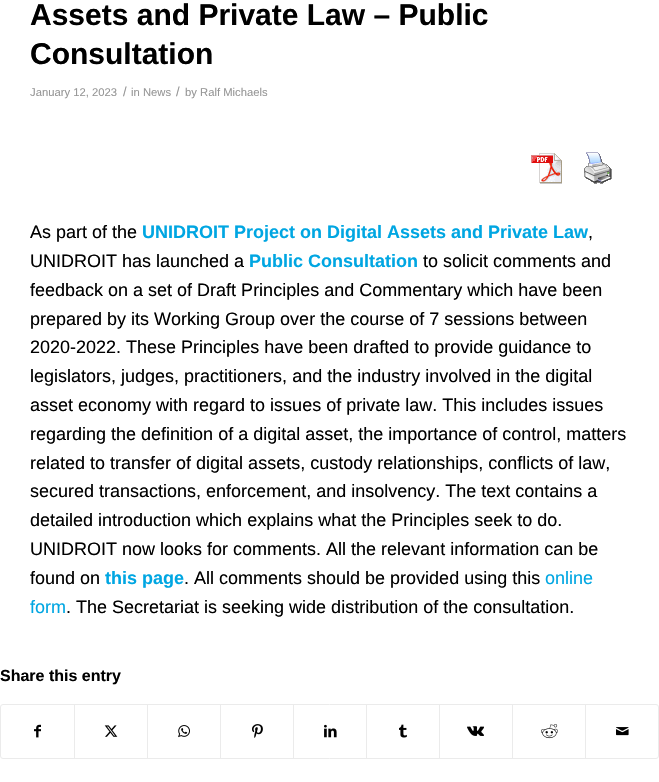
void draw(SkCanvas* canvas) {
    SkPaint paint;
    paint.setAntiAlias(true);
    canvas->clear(0xFFFFFFFF);
    SkFont font1(fontMgr->matchFamilyStyle("Liberation Sans", SkFontStyle::Bold()), 30);
    font1.setSubpixel(true);
    paint.setColor(0xFF000000);
    canvas->drawString("Assets and Private Law – Public", 30, 25, font1, paint);
    canvas->drawString("Consultation", 30, 64, font1, paint);
    SkFont font2(fontMgr->matchFamilyStyle("Liberation Sans", SkFontStyle::Normal()), 11.25f);
    font2.setSubpixel(true);
    paint.setColor(0xFF969696);
    canvas->drawString("January 12, 2023", 30, 96, font2, paint);
    SkFont font3(fontMgr->matchFamilyStyle("Liberation Sans", SkFontStyle::Normal()), 13);
    font3.setSubpixel(true);
    canvas->drawString("/", 123, 96, font3, paint);
    canvas->drawString("in News", 131, 96, font2, paint);
    canvas->drawString("/", 176, 96, font3, paint);
    canvas->drawString("by Ralf Michaels", 185, 96, font2, paint);
    canvas->drawImageRect(SkImages::DeferredFromEncodedData(SkData::MakeFromFileName("img1.png")), SkRect::MakeXYWH(531, 153, 31, 31), SkSamplingOptions());
    canvas->drawImageRect(SkImages::DeferredFromEncodedData(SkData::MakeFromFileName("img2.png")), SkRect::MakeXYWH(584, 152, 28, 32), SkSamplingOptions());
    SkFont font4(fontMgr->matchFamilyStyle("Liberation Sans", SkFontStyle::Normal()), 18);
    font4.setSubpixel(true);
    paint.setColor(0xFF000000);
    canvas->drawString("As part of the", 30, 238, font4, paint);
    SkFont font5(fontMgr->matchFamilyStyle("Liberation Sans", SkFontStyle::Bold()), 18);
    font5.setSubpixel(true);
    paint.setColor(0xFF00A6E2);
    canvas->drawString("UNIDROIT Project on Digital Assets and Private Law", 142, 238, font5, paint);
    paint.setColor(0xFF000000);
    canvas->drawString(",", 588, 238, font4, paint);
    canvas->drawString("UNIDROIT has launched a", 30, 267, font4, paint);
    paint.setColor(0xFF00A6E2);
    canvas->drawString("Public Consultation", 249, 267, font5, paint);
    paint.setColor(0xFF000000);
    canvas->drawString("to solicit comments and", 423, 267, font4, paint);
    canvas->drawString("feedback on a set of Draft Principles and Commentary which have been", 30, 296, font4, paint);
    canvas->drawString("prepared by its Working Group over the course of 7 sessions between", 30, 325, font4, paint);
    canvas->drawString("2020-2022. These Principles have been drafted to provide guidance to", 30, 353, font4, paint);
    canvas->drawString("legislators, judges, practitioners, and the industry involved in the digital", 30, 382, font4, paint);
    canvas->drawString("asset economy with regard to issues of private law. This includes issues", 30, 411, font4, paint);
    canvas->drawString("regarding the definition of a digital asset, the importance of control, matters", 30, 440, font4, paint);
    canvas->drawString("related to transfer of digital assets, custody relationships, conflicts of law,", 30, 469, font4, paint);
    canvas->drawString("secured transactions, enforcement, and insolvency. The text contains a", 30, 497, font4, paint);
    canvas->drawString("detailed introduction which explains what the Principles seek to do.", 30, 526, font4, paint);
    canvas->drawString("UNIDROIT now looks for comments. All the relevant information can be", 30, 555, font4, paint);
    canvas->drawString("found on", 30, 584, font4, paint);
    paint.setColor(0xFF00A6E2);
    canvas->drawString("this page", 105, 584, font5, paint);
    paint.setColor(0xFF000000);
    canvas->drawString(". All comments should be provided using this", 184, 584, font4, paint);
    paint.setColor(0xFF00A6E2);
    canvas->drawString("online", 545, 584, font4, paint);
    canvas->drawString("form", 30, 613, font4, paint);
    paint.setColor(0xFF000000);
    canvas->drawString(". The Secretariat is seeking wide distribution of the consultation.", 66, 613, font4, paint);
    SkFont font6(fontMgr->matchFamilyStyle("Liberation Sans", SkFontStyle::Bold()), 16);
    font6.setSubpixel(true);
    canvas->drawString("Share this entry", 0, 681, font6, paint);
    paint.setStyle(SkPaint::kStroke_Style);
    paint.setStrokeWidth(1);
    paint.setColor(0xFFEBEBEB);
    canvas->drawRoundRect(SkRect::MakeXYWH(0.5f, 704.5f, 658, 54), 2.5f, 2.5f, paint);
    canvas->drawImageRect(SkImages::DeferredFromEncodedData(SkData::MakeFromFileName("img3.png")), SkRect::MakeXYWH(34, 724, 7, 14), SkSamplingOptions());
    paint.setStyle(SkPaint::kFill_Style);
    canvas->drawRect(SkRect::MakeXYWH(74, 705, 1, 53), paint);
    canvas->drawImageRect(SkImages::DeferredFromEncodedData(SkData::MakeFromFileName("img4.png")), SkRect::MakeXYWH(104, 725, 14, 12), SkSamplingOptions());
    canvas->drawRect(SkRect::MakeXYWH(147, 705, 1, 53), paint);
    canvas->drawImageRect(SkImages::DeferredFromEncodedData(SkData::MakeFromFileName("img5.png")), SkRect::MakeXYWH(178, 725, 12, 13), SkSamplingOptions());
    canvas->drawRect(SkRect::MakeXYWH(220, 705, 1, 53), paint);
    canvas->drawImageRect(SkImages::DeferredFromEncodedData(SkData::MakeFromFileName("img6.png")), SkRect::MakeXYWH(252, 724, 11, 14), SkSamplingOptions());
    canvas->drawRect(SkRect::MakeXYWH(293, 705, 1, 53), paint);
    canvas->drawImageRect(SkImages::DeferredFromEncodedData(SkData::MakeFromFileName("img7.png")), SkRect::MakeXYWH(324, 724, 13, 14), SkSamplingOptions());
    canvas->drawRect(SkRect::MakeXYWH(366, 705, 1, 53), paint);
    canvas->drawImageRect(SkImages::DeferredFromEncodedData(SkData::MakeFromFileName("img8.png")), SkRect::MakeXYWH(399, 724, 8, 14), SkSamplingOptions());
    canvas->drawRect(SkRect::MakeXYWH(439, 705, 1, 53), paint);
    canvas->drawImageRect(SkImages::DeferredFromEncodedData(SkData::MakeFromFileName("img9.png")), SkRect::MakeXYWH(467, 726, 17, 10), SkSamplingOptions());
    canvas->drawRect(SkRect::MakeXYWH(512, 705, 1, 53), paint);
    canvas->drawImageRect(SkImages::DeferredFromEncodedData(SkData::MakeFromFileName("img10.png")), SkRect::MakeXYWH(541, 724, 17, 15), SkSamplingOptions());
    canvas->drawRect(SkRect::MakeXYWH(585, 705, 1, 53), paint);
    canvas->drawImageRect(SkImages::DeferredFromEncodedData(SkData::MakeFromFileName("img11.png")), SkRect::MakeXYWH(616, 727, 13, 9), SkSamplingOptions());
}
